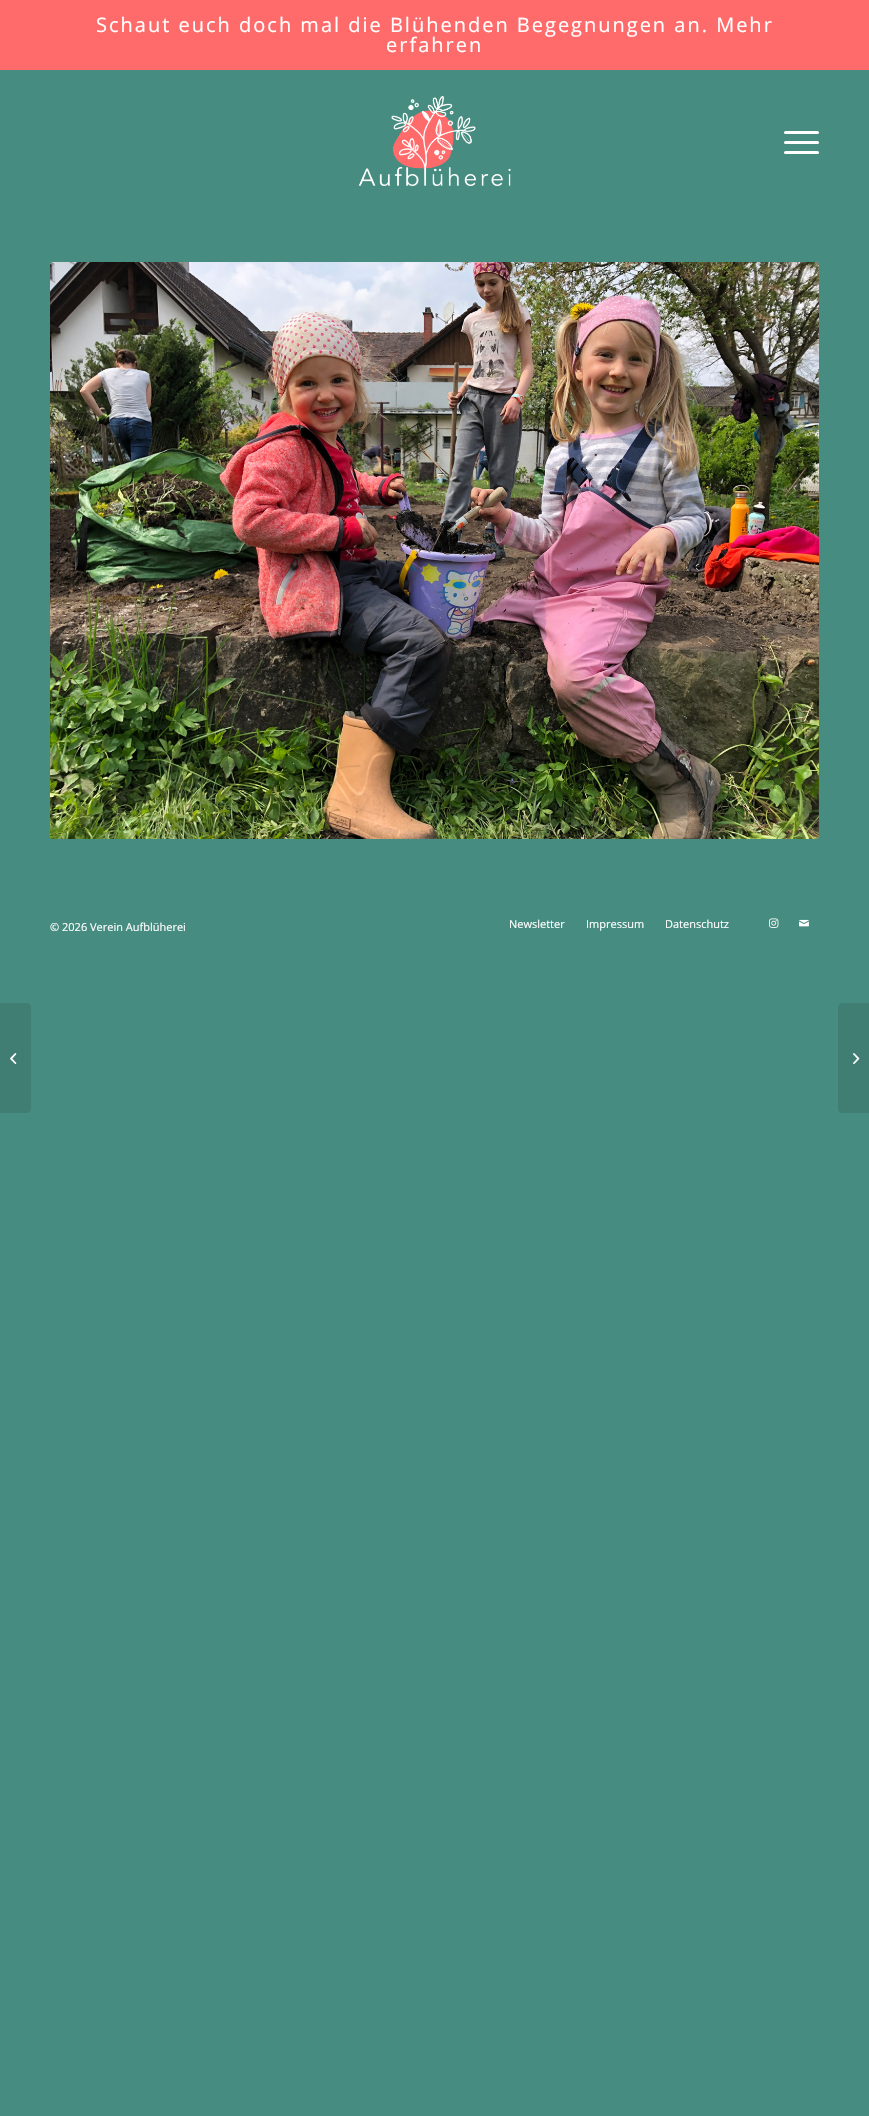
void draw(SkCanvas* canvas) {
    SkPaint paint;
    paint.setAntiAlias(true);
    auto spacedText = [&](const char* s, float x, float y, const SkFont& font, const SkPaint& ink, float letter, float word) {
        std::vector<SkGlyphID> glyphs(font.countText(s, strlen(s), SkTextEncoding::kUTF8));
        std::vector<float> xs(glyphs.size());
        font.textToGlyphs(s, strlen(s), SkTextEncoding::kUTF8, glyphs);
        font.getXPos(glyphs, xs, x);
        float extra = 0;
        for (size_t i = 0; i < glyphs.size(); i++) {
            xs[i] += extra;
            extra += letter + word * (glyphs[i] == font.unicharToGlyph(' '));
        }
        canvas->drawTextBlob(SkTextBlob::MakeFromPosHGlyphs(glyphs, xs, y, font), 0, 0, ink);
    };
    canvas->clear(0xFF478C80);
    paint.setColor(0xFFFF6B6B);
    canvas->drawRect(SkRect::MakeXYWH(0, 0, 869, 70), paint);
    SkFont font1(fontMgr->matchFamilyStyle("Open Sans", SkFontStyle::Normal()), 20);
    font1.setSubpixel(true);
    paint.setColor(0xFFFFFFFF);
    spacedText("Schaut euch doch mal die Blühenden Begegnungen an. Mehr", 96, 32, font1, paint, 2, 0);
    spacedText("erfahren", 386, 52, font1, paint, 2, 0);
    canvas->drawImageRect(SkImages::DeferredFromEncodedData(SkData::MakeFromFileName("img1.png")), SkRect::MakeXYWH(358, 96, 153, 90), SkSamplingOptions());
    canvas->drawRoundRect(SkRect::MakeXYWH(784, 141, 35, 3), 1.5f, 1.5f, paint);
    canvas->drawRoundRect(SkRect::MakeXYWH(784, 131, 35, 3), 1.5f, 1.5f, paint);
    canvas->drawRoundRect(SkRect::MakeXYWH(784, 151, 35, 3), 1.5f, 1.5f, paint);
    canvas->drawImageRect(SkImages::DeferredFromEncodedData(SkData::MakeFromFileName("img2.png")), SkRect::MakeXYWH(50, 262, 769, 577), SkSamplingOptions());
    SkFont font2(fontMgr->matchFamilyStyle("Open Sans", SkFontStyle::Normal()), 11);
    font2.setSubpixel(true);
    canvas->drawString("© 2026 Verein Aufblüherei", 50, 931, font2, paint);
    canvas->drawString("Newsletter", 509, 928, font2, paint);
    canvas->drawString("Impressum", 586, 928, font2, paint);
    canvas->drawString("Datenschutz", 665, 928, font2, paint);
    canvas->drawImageRect(SkImages::DeferredFromEncodedData(SkData::MakeFromFileName("img3.png")), SkRect::MakeXYWH(769, 918, 10, 10), SkSamplingOptions());
    canvas->drawImageRect(SkImages::DeferredFromEncodedData(SkData::MakeFromFileName("img4.png")), SkRect::MakeXYWH(799, 919, 10, 8), SkSamplingOptions());
    paint.setColor(0xFF407E73);
    canvas->drawPath(SkPathBuilder().moveTo(0, 1003).lineTo(27, 1003).cubicTo(29, 1003, 31, 1005, 31, 1007).lineTo(31, 1109).cubicTo(31, 1111, 29, 1113, 27, 1113).lineTo(0, 1113).close().detach(), paint);
    canvas->drawImageRect(SkImages::DeferredFromEncodedData(SkData::MakeFromFileName("img5.png")), SkRect::MakeXYWH(10, 1053, 7, 12), SkSamplingOptions());
    canvas->drawPath(SkPathBuilder().moveTo(842, 1003).lineTo(869, 1003).lineTo(869, 1113).lineTo(842, 1113).cubicTo(840, 1113, 838, 1111, 838, 1109).lineTo(838, 1007).cubicTo(838, 1005, 840, 1003, 842, 1003).close().detach(), paint);
    canvas->drawImageRect(SkImages::DeferredFromEncodedData(SkData::MakeFromFileName("img6.png")), SkRect::MakeXYWH(853, 1053, 7, 12), SkSamplingOptions());
}
